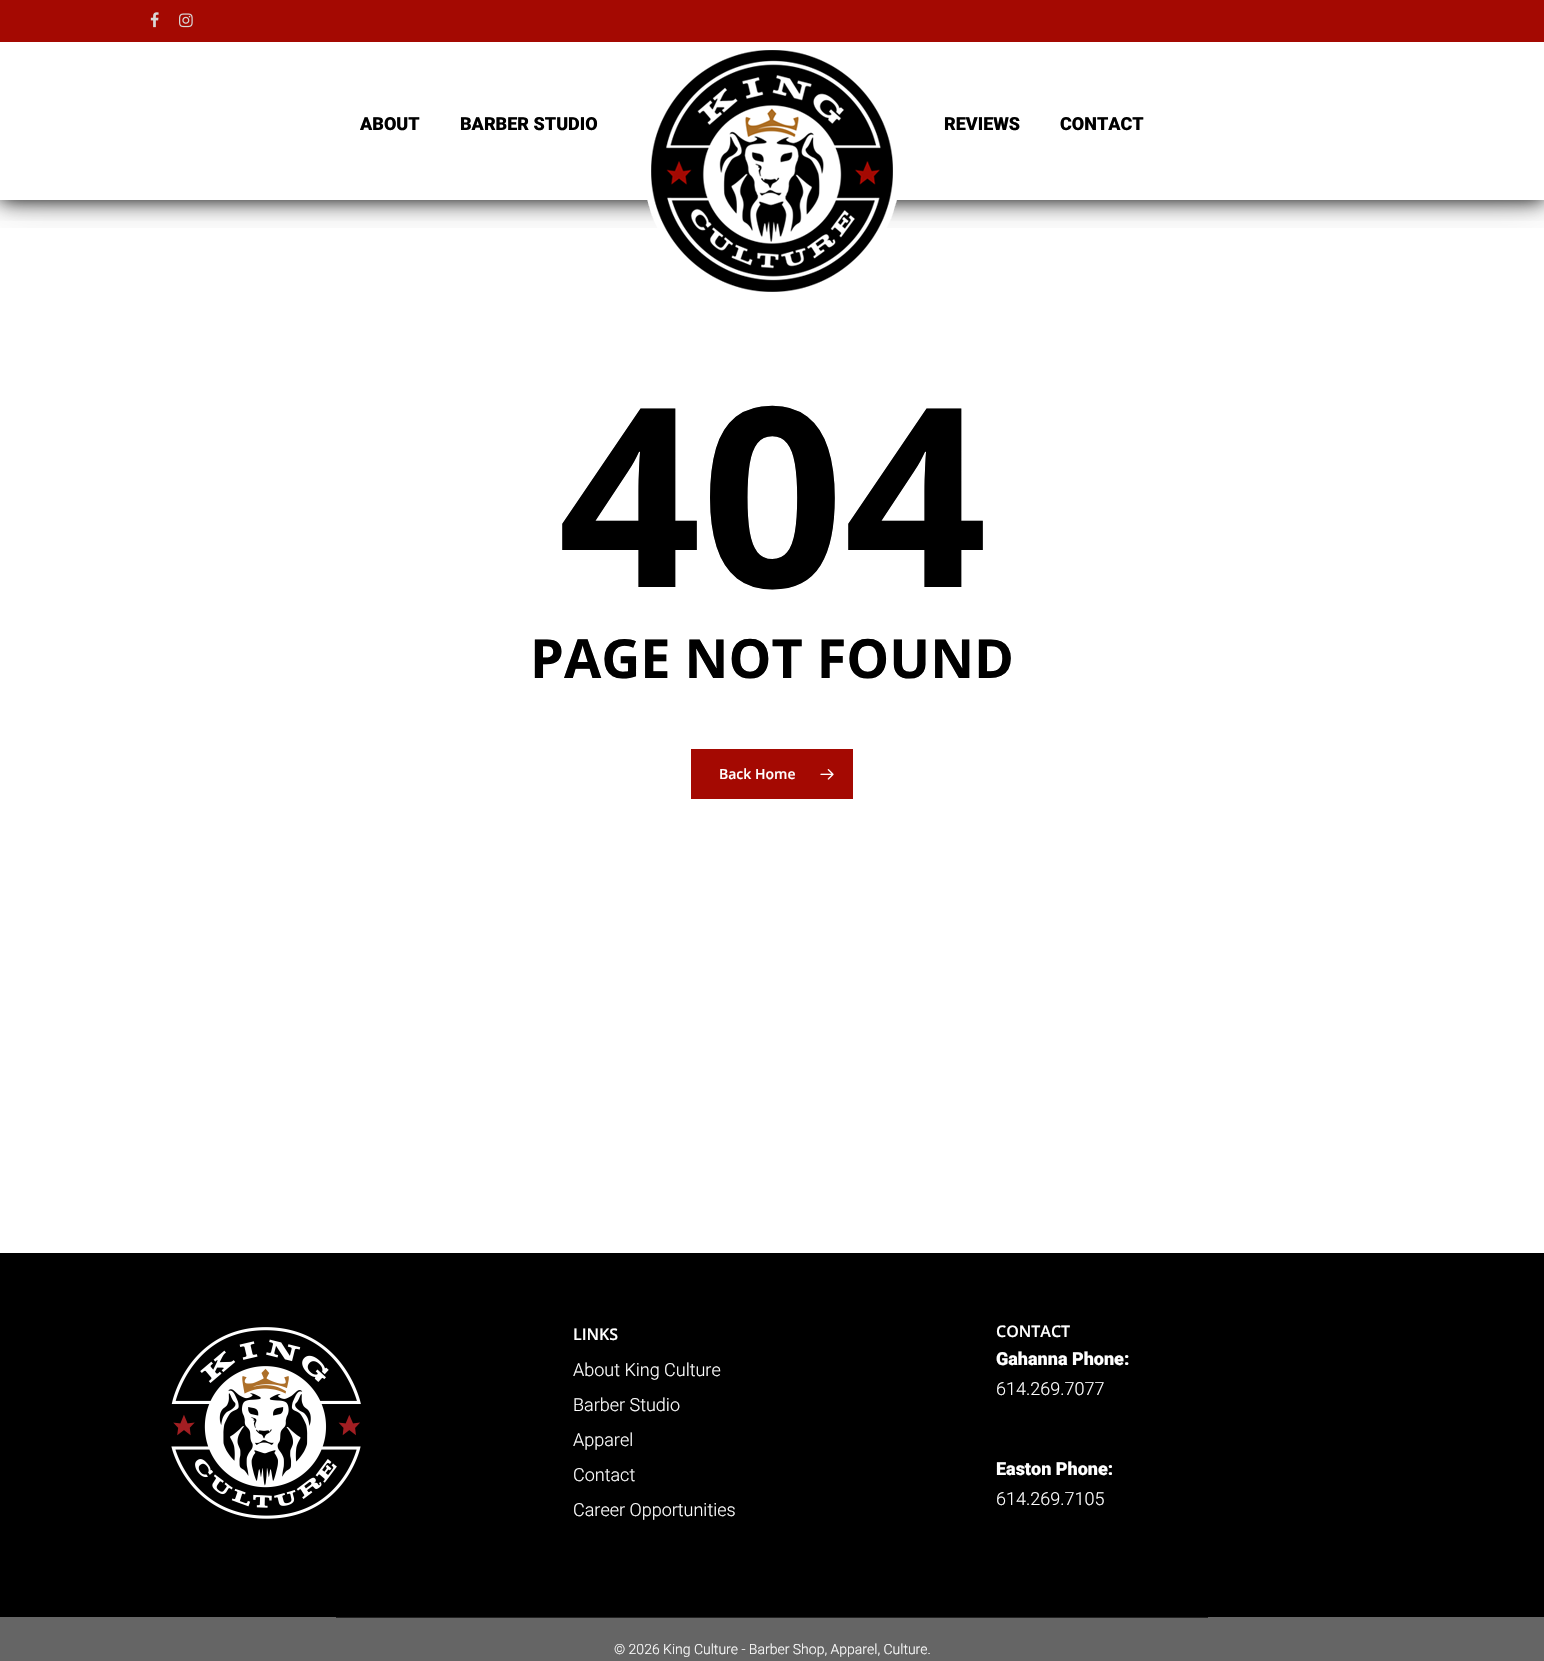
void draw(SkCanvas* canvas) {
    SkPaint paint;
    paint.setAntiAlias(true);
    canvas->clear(0xFFFFFFFF);
    canvas->save();
    canvas->clipRect(SkRect::MakeXYWH(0, 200, 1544, 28));
    paint.setColor(0x26000000);
    paint.setMaskFilter(SkMaskFilter::MakeBlur(kNormal_SkBlurStyle, 22.5f));
    canvas->drawRect(SkRect::MakeXYWH(0, 3, 1544, 200), paint);
    paint.setMaskFilter(nullptr);
    canvas->restore();
    canvas->save();
    canvas->clipRect(SkRect::MakeXYWH(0, 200, 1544, 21));
    paint.setColor(0xFF000000);
    paint.setMaskFilter(SkMaskFilter::MakeBlur(kNormal_SkBlurStyle, 10));
    canvas->drawRect(SkRect::MakeXYWH(0, 42, 1544, 158), paint);
    paint.setMaskFilter(nullptr);
    canvas->restore();
    paint.setColor(0xFFA40902);
    canvas->drawRect(SkRect::MakeXYWH(0, 0, 1544, 42), paint);
    canvas->drawImageRect(SkImages::DeferredFromEncodedData(SkData::MakeFromFileName("img1.png")), SkRect::MakeXYWH(150, 12, 9, 16), SkSamplingOptions());
    canvas->drawImageRect(SkImages::DeferredFromEncodedData(SkData::MakeFromFileName("img2.png")), SkRect::MakeXYWH(179, 13, 14, 15), SkSamplingOptions());
    canvas->drawImageRect(SkImages::DeferredFromEncodedData(SkData::MakeFromFileName("img3.png")), SkRect::MakeXYWH(647, 50, 250, 242), SkSamplingOptions());
    SkFont font1(fontMgr->matchFamilyStyle("Roboto", SkFontStyle(900, SkFontStyle::kNormal_Width, SkFontStyle::kUpright_Slant)), 18);
    font1.setSubpixel(true);
    paint.setColor(0xFF000000);
    canvas->drawString("ABOUT", 360, 130, font1, paint);
    canvas->drawString("BARBER STUDIO", 460, 130, font1, paint);
    canvas->drawString("REVIEWS", 944, 130, font1, paint);
    canvas->drawString("CONTACT", 1060, 130, font1, paint);
    SkFont font2(fontMgr->matchFamilyStyle("Open Sans", SkFontStyle::Bold()), 250);
    font2.setSubpixel(true);
    canvas->drawString("404", 558, 587, font2, paint);
    SkFont font3(fontMgr->matchFamilyStyle("Open Sans", SkFontStyle::Bold()), 54);
    font3.setSubpixel(true);
    canvas->drawString("PAGE NOT FOUND", 530, 678, font3, paint);
    paint.setColor(0xFFA40902);
    canvas->drawRect(SkRect::MakeXYWH(691, 749, 162, 50), paint);
    SkFont font4(fontMgr->matchFamilyStyle("Open Sans", SkFontStyle(600, SkFontStyle::kNormal_Width, SkFontStyle::kUpright_Slant)), 14);
    font4.setSubpixel(true);
    paint.setColor(0xFFFFFFFF);
    canvas->drawString("Back Home", 719, 779, font4, paint);
    canvas->drawImageRect(SkImages::DeferredFromEncodedData(SkData::MakeFromFileName("img4.png")), SkRect::MakeXYWH(820, 769, 14, 11), SkSamplingOptions());
    paint.setColor(0xFF000000);
    canvas->drawRect(SkRect::MakeXYWH(0, 1253, 1544, 364), paint);
    canvas->drawImageRect(SkImages::DeferredFromEncodedData(SkData::MakeFromFileName("img5.png")), SkRect::MakeXYWH(171, 1327, 190, 192), SkSamplingOptions());
    SkFont font5(fontMgr->matchFamilyStyle("Open Sans", SkFontStyle(600, SkFontStyle::kNormal_Width, SkFontStyle::kUpright_Slant)), 16);
    font5.setSubpixel(true);
    paint.setColor(0xFFFFFFFF);
    canvas->drawString("LINKS", 573, 1340, font5, paint);
    SkFont font6(fontMgr->matchFamilyStyle("Roboto", SkFontStyle(300, SkFontStyle::kNormal_Width, SkFontStyle::kUpright_Slant)), 18);
    font6.setSubpixel(true);
    canvas->drawString("About King Culture", 573, 1376, font6, paint);
    canvas->drawString("Barber Studio", 573, 1411, font6, paint);
    canvas->drawString("Apparel", 573, 1446, font6, paint);
    canvas->drawString("Contact", 573, 1481, font6, paint);
    canvas->drawString("Career Opportunities", 573, 1516, font6, paint);
    canvas->drawString("CONTACT", 996, 1337, font5, paint);
    canvas->drawString("Gahanna Phone:", 996, 1365, font1, paint);
    canvas->drawString("614.269.7077", 996, 1395, font6, paint);
    canvas->drawString("Easton Phone:", 996, 1475, font1, paint);
    canvas->drawString("614.269.7105", 996, 1505, font6, paint);
    paint.setColor(0xFF656565);
    canvas->drawRect(SkRect::MakeXYWH(0, 1617, 1544, 44), paint);
    paint.setColor(0xFF222222);
    canvas->drawRect(SkRect::MakeXYWH(336, 1617, 872, 1), paint);
    SkFont font7(fontMgr->matchFamilyStyle("Roboto", SkFontStyle(300, SkFontStyle::kNormal_Width, SkFontStyle::kUpright_Slant)), 14);
    font7.setSubpixel(true);
    paint.setColor(0xFFFFFFFF);
    canvas->drawString("© 2026 King Culture - Barber Shop, Apparel, Culture.", 614, 1654, font7, paint);
}
